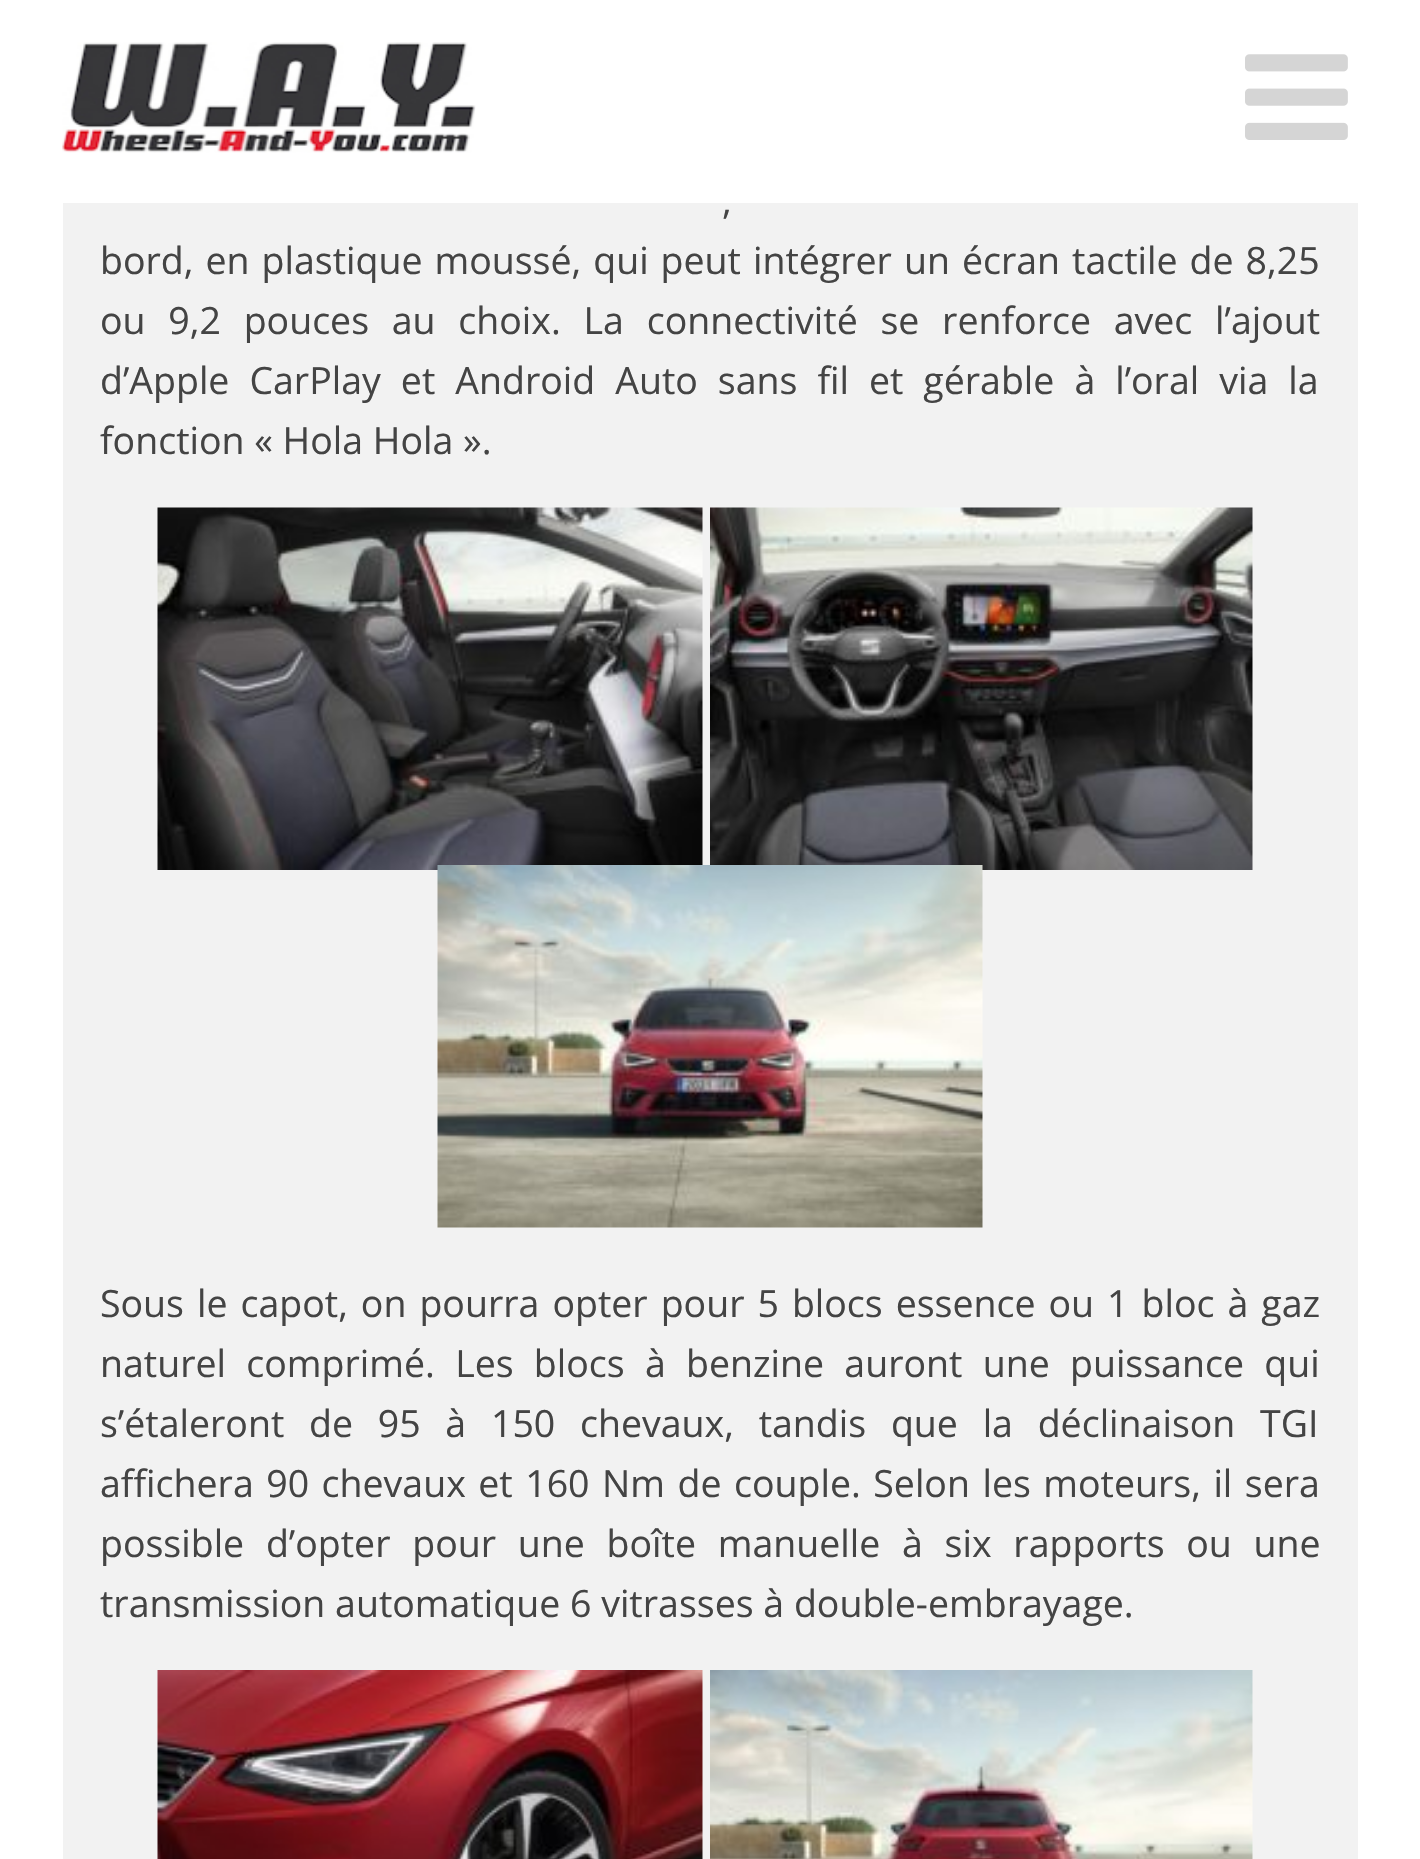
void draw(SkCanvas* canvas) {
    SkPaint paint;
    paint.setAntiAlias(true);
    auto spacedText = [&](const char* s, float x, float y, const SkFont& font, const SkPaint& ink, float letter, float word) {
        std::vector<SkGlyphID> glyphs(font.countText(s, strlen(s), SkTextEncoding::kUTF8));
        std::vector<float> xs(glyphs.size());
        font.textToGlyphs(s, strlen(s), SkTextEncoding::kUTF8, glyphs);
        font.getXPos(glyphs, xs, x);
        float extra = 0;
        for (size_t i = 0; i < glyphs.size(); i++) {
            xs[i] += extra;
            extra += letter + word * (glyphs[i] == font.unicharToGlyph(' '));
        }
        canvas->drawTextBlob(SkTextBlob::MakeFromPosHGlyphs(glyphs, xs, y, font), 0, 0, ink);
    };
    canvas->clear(0xFFFFFFFF);
    canvas->drawImageRect(SkImages::DeferredFromEncodedData(SkData::MakeFromFileName("img1.png")), SkRect::MakeXYWH(62, 42, 414, 111), SkSamplingOptions());
    canvas->drawImageRect(SkImages::DeferredFromEncodedData(SkData::MakeFromFileName("img2.png")), SkRect::MakeXYWH(1245, 54, 103, 86), SkSamplingOptions());
    paint.setColor(0xFFF2F2F2);
    canvas->drawRect(SkRect::MakeXYWH(63, 203, 1295, 1656), paint);
    SkFont font1(fontMgr->matchFamilyStyle("Open Sans", SkFontStyle::Normal()), 37.5f);
    font1.setSubpixel(true);
    paint.setColor(0xFF444444);
    spacedText(",", 722, 214, font1, paint, 0, 13);
    spacedText("bord, en plastique moussé, qui peut intégrer un écran tactile de 8,25", 100, 274, font1, paint, 0, 2.25f);
    spacedText("ou 9,2 pouces au choix. La connectivité se renforce avec l’ajout", 100, 334, font1, paint, 0, 13);
    spacedText("d’Apple CarPlay et Android Auto sans fil et gérable à l’oral via la", 100, 394, font1, paint, 0, 10.25f);
    canvas->drawString("fonction « Hola Hola ».", 100, 454, font1, paint);
    canvas->drawImageRect(SkImages::DeferredFromEncodedData(SkData::MakeFromFileName("img3.png")), SkRect::MakeXYWH(157, 507, 546, 363), SkSamplingOptions());
    canvas->drawImageRect(SkImages::DeferredFromEncodedData(SkData::MakeFromFileName("img4.png")), SkRect::MakeXYWH(710, 507, 543, 363), SkSamplingOptions());
    canvas->drawImageRect(SkImages::DeferredFromEncodedData(SkData::MakeFromFileName("img5.png")), SkRect::MakeXYWH(437, 865, 546, 363), SkSamplingOptions());
    spacedText("Sous le capot, on pourra opter pour 5 blocs essence ou 1 bloc à gaz", 100, 1317, font1, paint, 0, 3.25f);
    spacedText("naturel comprimé. Les blocs à benzine auront une puissance qui", 100, 1377, font1, paint, 0, 10.5f);
    spacedText("s’étaleront de 95 à 150 chevaux, tandis que la déclinaison TGI", 100, 1437, font1, paint, 0, 15);
    spacedText("affichera 90 chevaux et 160 Nm de couple. Selon les moteurs, il sera", 100, 1497, font1, paint, 0, 2.75f);
    spacedText("possible d’opter pour une boîte manuelle à six rapports ou une", 100, 1557, font1, paint, 0, 12);
    canvas->drawString("transmission automatique 6 vitrasses à double-embrayage.", 100, 1617, font1, paint);
    canvas->drawImageRect(SkImages::DeferredFromEncodedData(SkData::MakeFromFileName("img6.png")), SkRect::MakeXYWH(157, 1670, 546, 189), SkSamplingOptions());
    canvas->drawImageRect(SkImages::DeferredFromEncodedData(SkData::MakeFromFileName("img7.png")), SkRect::MakeXYWH(710, 1670, 543, 189), SkSamplingOptions());
}
